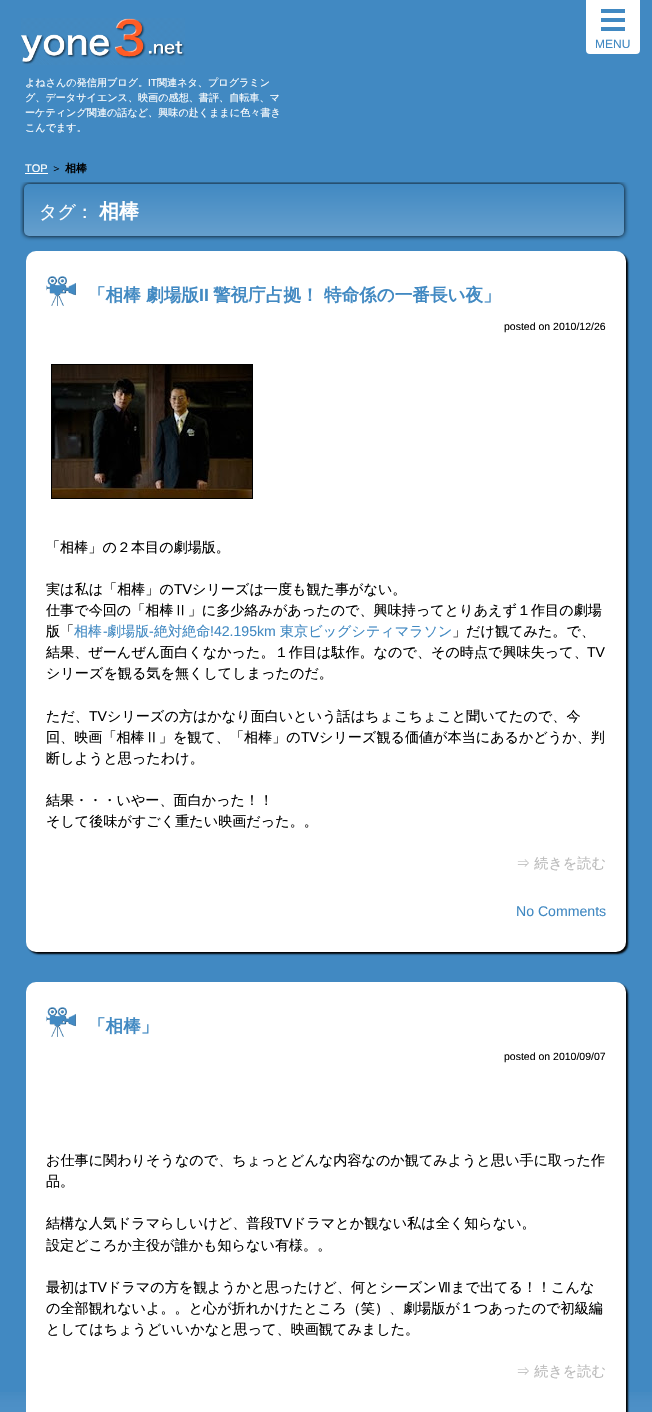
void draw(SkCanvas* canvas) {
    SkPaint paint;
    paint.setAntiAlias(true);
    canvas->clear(0xFF4189C2);
    canvas->drawImageRect(SkImages::DeferredFromEncodedData(SkData::MakeFromFileName("img1.png")), SkRect::MakeXYWH(0, 1392, 652, 20), SkSamplingOptions());
    paint.setColor(0xFFFFFFFF);
    canvas->drawPath(SkPathBuilder().moveTo(587.5f, 1.5f).lineTo(638.5f, 1.5f).lineTo(638.5f, 50).cubicTo(638.5f, 51.5f, 637.5f, 52.5f, 636, 52.5f).lineTo(590, 52.5f).cubicTo(588.5f, 52.5f, 587.5f, 51.5f, 587.5f, 50).close().detach(), paint);
    paint.setStyle(SkPaint::kStroke_Style);
    paint.setStrokeWidth(3);
    canvas->drawPath(SkPathBuilder().moveTo(587.5f, 1.5f).lineTo(638.5f, 1.5f).lineTo(638.5f, 50).cubicTo(638.5f, 51.5f, 637.5f, 52.5f, 636, 52.5f).lineTo(590, 52.5f).cubicTo(588.5f, 52.5f, 587.5f, 51.5f, 587.5f, 50).close().detach(), paint);
    paint.setStyle(SkPaint::kFill_Style);
    paint.setColor(0xFF4189C2);
    canvas->drawRect(SkRect::MakeXYWH(601, 9, 24, 4), paint);
    canvas->drawRect(SkRect::MakeXYWH(601, 18, 24, 4), paint);
    canvas->drawRect(SkRect::MakeXYWH(601, 27, 24, 4), paint);
    SkFont font1(fontMgr->matchFamilyStyle("Liberation Sans", SkFontStyle::Normal()), 12);
    font1.setSubpixel(true);
    canvas->drawString("MENU", 595, 48, font1, paint);
    canvas->drawImageRect(SkImages::DeferredFromEncodedData(SkData::MakeFromFileName("img2.png")), SkRect::MakeXYWH(21, 18, 164, 47), SkSamplingOptions());
    SkFont font2(fontMgr->matchFamilyStyle("WenQuanYi Zen Hei", SkFontStyle(500, SkFontStyle::kNormal_Width, SkFontStyle::kUpright_Slant)), 10.1f);
    font2.setSubpixel(true);
    paint.setColor(0xFFFFFFFF);
    canvas->drawString("よねさんの発信用ブログ。", 25, 86, font2, paint);
    SkFont font3(fontMgr->matchFamilyStyle("Liberation Sans", SkFontStyle::Normal()), 10.1f);
    font3.setSubpixel(true);
    canvas->drawString("IT", 148, 86, font3, paint);
    canvas->drawString("関連ネタ、プログラミン", 157, 86, font2, paint);
    canvas->drawString("グ、データサイエンス、映画の感想、書評、自転車、マ", 25, 101, font2, paint);
    canvas->drawString("ーケティング関連の話など、興味の赴くままに色々書き", 25, 116, font2, paint);
    canvas->drawString("こんでます。", 25, 131, font2, paint);
    SkFont font4(fontMgr->matchFamilyStyle("Liberation Sans", SkFontStyle::Normal()), 11);
    font4.setSubpixel(true);
    canvas->drawString("TOP", 25, 172, font4, paint);
    canvas->drawRect(SkRect::MakeXYWH(25, 173, 23, 1), paint);
    SkFont font5(fontMgr->matchFamilyStyle("WenQuanYi Zen Hei", SkFontStyle(500, SkFontStyle::kNormal_Width, SkFontStyle::kUpright_Slant)), 11);
    font5.setSubpixel(true);
    paint.setColor(0xFF000000);
    canvas->drawString("＞", 51, 172, font5, paint);
    SkFont font6(fontMgr->matchFamilyStyle("WenQuanYi Zen Hei", SkFontStyle::Bold()), 11);
    font6.setSubpixel(true);
    canvas->drawString("相棒", 65, 172, font6, paint);
    canvas->save();
    canvas->clipRect(SkRect::MakeXYWH(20, 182, 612, 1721));
    paint.setMaskFilter(SkMaskFilter::MakeBlur(kNormal_SkBlurStyle, 2.5f));
    canvas->drawRoundRect(SkRect::MakeXYWH(24, 184, 600, 52), 5, 5, paint);
    paint.setMaskFilter(nullptr);
    canvas->restore();
    {
        const SkColor colors[] = {0xFF4189C2, 0xFF659FCD};
        const float stops[] = {0, 1};
        const SkPoint ends[] = {{324, 184}, {324, 236}};
        paint.setShader(SkGradientShader::MakeLinear(ends, colors, stops, 2, SkTileMode::kClamp));
        paint.setAlpha(255);
    }
    canvas->drawRoundRect(SkRect::MakeXYWH(24, 184, 600, 52), 5, 5, paint);
    SkFont font7(fontMgr->matchFamilyStyle("WenQuanYi Zen Hei", SkFontStyle(500, SkFontStyle::kNormal_Width, SkFontStyle::kUpright_Slant)), 18);
    font7.setSubpixel(true);
    paint.setShader(nullptr);
    paint.setColor(0xFFFFFFFF);
    canvas->drawString("タグ：", 39, 218, font7, paint);
    SkFont font8(fontMgr->matchFamilyStyle("WenQuanYi Zen Hei", SkFontStyle::Bold()), 20);
    font8.setSubpixel(true);
    canvas->drawString("相棒", 99, 218, font8, paint);
    paint.setColor(0xFF000000);
    paint.setMaskFilter(SkMaskFilter::MakeBlur(kNormal_SkBlurStyle, 1));
    canvas->drawRoundRect(SkRect::MakeXYWH(28, 253, 600, 701), 10, 10, paint);
    paint.setMaskFilter(nullptr);
    paint.setColor(0xFFFFFFFF);
    canvas->drawRoundRect(SkRect::MakeXYWH(26, 251, 600, 701), 10, 10, paint);
    canvas->drawImageRect(SkImages::DeferredFromEncodedData(SkData::MakeFromFileName("img3.png")), SkRect::MakeXYWH(46, 276, 30, 30), SkSamplingOptions());
    SkFont font9(fontMgr->matchFamilyStyle("WenQuanYi Zen Hei", SkFontStyle::Bold()), 17.6f);
    font9.setSubpixel(true);
    paint.setColor(0xFF4189C2);
    canvas->drawString("「相棒 劇場版", 88, 301, font9, paint);
    SkFont font10(fontMgr->matchFamilyStyle("Liberation Sans", SkFontStyle::Bold()), 17.6f);
    font10.setSubpixel(true);
    canvas->drawString("II", 199, 301, font10, paint);
    canvas->drawString("警視庁占拠！ 特命係の一番長い夜」", 213, 301, font9, paint);
    SkFont font11(fontMgr->matchFamilyStyle("Liberation Sans", SkFontStyle::Normal()), 10.5f);
    font11.setSubpixel(true);
    paint.setColor(0xFF000000);
    canvas->drawString("posted on 2010/12/26", 504, 330, font11, paint);
    paint.setStyle(SkPaint::kStroke_Style);
    paint.setStrokeWidth(1);
    canvas->drawRect(SkRect::MakeXYWH(51.5f, 364.5f, 201, 134), paint);
    canvas->drawImageRect(SkImages::DeferredFromEncodedData(SkData::MakeFromFileName("img4.png")), SkRect::MakeXYWH(52, 365, 200, 133), SkSamplingOptions());
    SkFont font12(fontMgr->matchFamilyStyle("WenQuanYi Zen Hei", SkFontStyle(500, SkFontStyle::kNormal_Width, SkFontStyle::kUpright_Slant)), 14.1f);
    font12.setSubpixel(true);
    paint.setStyle(SkPaint::kFill_Style);
    canvas->drawString("「相棒」の２本目の劇場版。", 46, 552, font12, paint);
    canvas->drawString("実は私は「相棒」の", 46, 594, font12, paint);
    SkFont font13(fontMgr->matchFamilyStyle("Liberation Sans", SkFontStyle::Normal()), 14.1f);
    font13.setSubpixel(true);
    canvas->drawString("TV", 174, 594, font13, paint);
    canvas->drawString("シリーズは一度も観た事がない。", 192, 594, font12, paint);
    canvas->drawString("仕事で今回の「相棒Ⅱ」に多少絡みがあったので、興味持ってとりあえず１作目の劇場", 46, 615, font12, paint);
    canvas->drawString("版「", 46, 636, font12, paint);
    paint.setColor(0xFF4189C2);
    canvas->drawString("相棒", 74, 636, font12, paint);
    canvas->drawString("-", 103, 636, font13, paint);
    canvas->drawString("劇場版", 107, 636, font12, paint);
    canvas->drawString("-", 149, 636, font13, paint);
    canvas->drawString("絶対絶命", 154, 636, font12, paint);
    canvas->drawString("!42.195km", 210, 636, font13, paint);
    canvas->drawString("東京ビッグシティマラソン", 280, 636, font12, paint);
    paint.setColor(0xFF000000);
    canvas->drawString("」だけ観てみた。で、", 452, 636, font12, paint);
    canvas->drawString("結果、ぜーんぜん面白くなかった。１作目は駄作。なので、その時点で興味失って、", 46, 657, font12, paint);
    canvas->drawString("TV", 587, 657, font13, paint);
    canvas->drawString("シリーズを観る気を無くしてしまったのだ。", 46, 678, font12, paint);
    canvas->drawString("ただ、", 46, 721, font12, paint);
    canvas->drawString("TV", 89, 721, font13, paint);
    canvas->drawString("シリーズの方はかなり面白いという話はちょこちょこと聞いてたので、今", 107, 721, font12, paint);
    canvas->drawString("回、映画「相棒Ⅱ」を観て、「相棒」の", 46, 742, font12, paint);
    canvas->drawString("TV", 301, 742, font13, paint);
    canvas->drawString("シリーズ観る価値が本当にあるかどうか、判", 319, 742, font12, paint);
    canvas->drawString("断しようと思ったわけ。", 46, 763, font12, paint);
    canvas->drawString("結果・・・いやー、面白かった！！", 46, 805, font12, paint);
    canvas->drawString("そして後味がすごく重たい映画だった。。", 46, 826, font12, paint);
    paint.setColor(0xFFBABABA);
    canvas->drawString("⇒ 続きを読む", 516, 868, font12, paint);
    paint.setColor(0xFF4189C2);
    canvas->drawString("No Comments", 516, 916, font13, paint);
    paint.setColor(0xFF000000);
    paint.setMaskFilter(SkMaskFilter::MakeBlur(kNormal_SkBlurStyle, 1));
    canvas->drawRoundRect(SkRect::MakeXYWH(28, 984, 600, 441), 10, 10, paint);
    paint.setMaskFilter(nullptr);
    paint.setColor(0xFFFFFFFF);
    canvas->drawRoundRect(SkRect::MakeXYWH(26, 982, 600, 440), 10, 10, paint);
    canvas->drawImageRect(SkImages::DeferredFromEncodedData(SkData::MakeFromFileName("img3.png")), SkRect::MakeXYWH(46, 1007, 30, 30), SkSamplingOptions());
    paint.setColor(0xFF4189C2);
    canvas->drawString("「相棒」", 88, 1032, font9, paint);
    paint.setColor(0xFF000000);
    canvas->drawString("posted on 2010/09/07", 504, 1060, font11, paint);
    canvas->drawString("お仕事に関わりそうなので、ちょっとどんな内容なのか観てみようと思い手に取った作", 46, 1165, font12, paint);
    canvas->drawString("品。", 46, 1186, font12, paint);
    canvas->drawString("結構な人気ドラマらしいけど、普段", 46, 1228, font12, paint);
    canvas->drawString("TV", 274, 1228, font13, paint);
    canvas->drawString("ドラマとか観ない私は全く知らない。", 292, 1228, font12, paint);
    canvas->drawString("設定どころか主役が誰かも知らない有様。。", 46, 1250, font12, paint);
    canvas->drawString("最初は", 46, 1292, font12, paint);
    canvas->drawString("TV", 89, 1292, font13, paint);
    canvas->drawString("ドラマの方を観ようかと思ったけど、何とシーズンⅦまで出てる！！こんな", 107, 1292, font12, paint);
    canvas->drawString("の全部観れないよ。。と心が折れかけたところ（笑）、劇場版が１つあったので初級編", 46, 1313, font12, paint);
    canvas->drawString("としてはちょうどいいかなと思って、映画観てみました。", 46, 1334, font12, paint);
    paint.setColor(0xFFBABABA);
    canvas->drawString("⇒ 続きを読む", 516, 1376, font12, paint);
}
